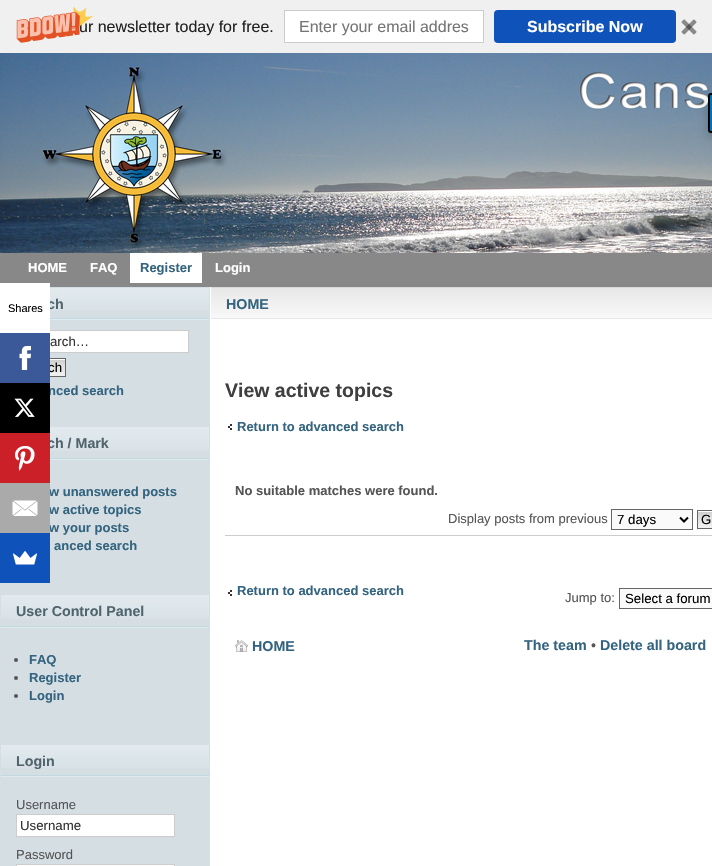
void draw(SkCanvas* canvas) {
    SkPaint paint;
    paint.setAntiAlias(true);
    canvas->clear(0xFFFFFFFF);
    paint.setColor(0xFFF0F0F0);
    canvas->drawRect(SkRect::MakeXYWH(0, 0, 712, 53), paint);
    SkFont font1(fontMgr->matchFamilyStyle("Liberation Sans", SkFontStyle::Normal()), 16);
    font1.setSubpixel(true);
    paint.setColor(0xFF222222);
    canvas->drawString("ur newsletter today for free.", 79, 32, font1, paint);
    canvas->drawImageRect(SkImages::DeferredFromEncodedData(SkData::MakeFromFileName("img1.png")), SkRect::MakeXYWH(16, 6, 78, 37), SkSamplingOptions());
    paint.setColor(0xFFFFFFFF);
    canvas->drawRect(SkRect::MakeXYWH(284.5f, 10.5f, 199, 32), paint);
    paint.setStyle(SkPaint::kStroke_Style);
    paint.setStrokeWidth(1);
    paint.setColor(0xFFCCCCCC);
    canvas->drawRect(SkRect::MakeXYWH(284.5f, 10.5f, 199, 32), paint);
    paint.setStyle(SkPaint::kFill_Style);
    paint.setColor(0xFF757575);
    canvas->drawString("Enter your email addres", 299, 32, font1, paint);
    paint.setColor(0xFF0F52BA);
    canvas->drawRoundRect(SkRect::MakeXYWH(494, 10, 182, 33), 4, 4, paint);
    SkFont font2(fontMgr->matchFamilyStyle("Liberation Sans", SkFontStyle::Bold()), 16);
    font2.setSubpixel(true);
    paint.setColor(0xFFFFFFFF);
    canvas->drawString("Subscribe Now", 527, 32, font2, paint);
    canvas->drawImageRect(SkImages::DeferredFromEncodedData(SkData::MakeFromFileName("img2.png")), SkRect::MakeXYWH(681, 19, 16, 16), SkSamplingOptions());
    canvas->drawImageRect(SkImages::DeferredFromEncodedData(SkData::MakeFromFileName("img3.png")), SkRect::MakeXYWH(0, 53, 712, 200), SkSamplingOptions());
    paint.setColor(0x33000000);
    paint.setMaskFilter(SkMaskFilter::MakeBlur(kNormal_SkBlurStyle, 5));
    canvas->drawRoundRect(SkRect::MakeXYWH(708, 97, 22, 40), 3, 3, paint);
    paint.setMaskFilter(nullptr);
    paint.setColor(0xFF0073B7);
    canvas->drawPath(SkPathBuilder().moveTo(711, 94).lineTo(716, 94).lineTo(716, 132).lineTo(711, 132).cubicTo(710, 132, 709, 131, 709, 130).lineTo(709, 96).cubicTo(709, 95, 710, 94, 711, 94).close().detach(), paint);
    paint.setStyle(SkPaint::kStroke_Style);
    paint.setStrokeWidth(2);
    paint.setColor(0xFF000000);
    canvas->drawPath(SkPathBuilder().moveTo(711, 94).lineTo(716, 94).lineTo(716, 132).lineTo(711, 132).cubicTo(710, 132, 709, 131, 709, 130).lineTo(709, 96).cubicTo(709, 95, 710, 94, 711, 94).close().detach(), paint);
    paint.setStyle(SkPaint::kFill_Style);
    paint.setColor(0xFF888888);
    canvas->drawRect(SkRect::MakeXYWH(0, 253, 712, 34), paint);
    SkFont font3(fontMgr->matchFamilyStyle("Liberation Sans", SkFontStyle::Bold()), 13);
    font3.setSubpixel(true);
    paint.setColor(0xFFFFFFFF);
    canvas->drawString("HOME", 28, 272, font3, paint);
    canvas->drawString("FAQ", 90, 272, font3, paint);
    canvas->drawRect(SkRect::MakeXYWH(130, 253, 72, 30), paint);
    paint.setColor(0xFF34647F);
    canvas->drawString("Register", 140, 272, font3, paint);
    paint.setColor(0xFFFFFFFF);
    canvas->drawString("Login", 215, 272, font3, paint);
    paint.setColor(0xFFD4DEE3);
    canvas->drawRect(SkRect::MakeXYWH(0, 287, 210, 579), paint);
    canvas->drawImageRect(SkImages::DeferredFromEncodedData(SkData::MakeFromFileName("img4.png")), SkRect::MakeXYWH(50, 288, 159, 23), SkSamplingOptions());
    paint.setColor(0xFFC3D9E1);
    canvas->drawRect(SkRect::MakeXYWH(50, 318, 159, 1), paint);
    SkFont font4(fontMgr->matchFamilyStyle("Liberation Sans", SkFontStyle::Bold()), 14.25f);
    font4.setSubpixel(true);
    paint.setColor(0xFF50646D);
    canvas->drawString("ch", 47, 309, font4, paint);
    paint.setColor(0xFFDFEAEF);
    canvas->drawRect(SkRect::MakeXYWH(50, 319, 159, 1), paint);
    paint.setColor(0xFFFFFFFF);
    canvas->drawRect(SkRect::MakeXYWH(50, 331, 138, 21), paint);
    paint.setStyle(SkPaint::kStroke_Style);
    paint.setStrokeWidth(1);
    paint.setColor(0xFFCCCCCC);
    canvas->drawRect(SkRect::MakeXYWH(16.5f, 330.5f, 172, 22), paint);
    SkFont font5(fontMgr->matchFamilyStyle("Liberation Sans", SkFontStyle::Normal()), 13.25f);
    font5.setSubpixel(true);
    paint.setStyle(SkPaint::kFill_Style);
    paint.setColor(0xFF333333);
    canvas->drawString("arch…", 50, 346, font5, paint);
    canvas->drawImageRect(SkImages::DeferredFromEncodedData(SkData::MakeFromFileName("img5.png")), SkRect::MakeXYWH(50, 359, 15, 17), SkSamplingOptions());
    paint.setStyle(SkPaint::kStroke_Style);
    paint.setColor(0xFF666666);
    canvas->drawRect(SkRect::MakeXYWH(16.5f, 358.5f, 49, 18), paint);
    paint.setStyle(SkPaint::kFill_Style);
    paint.setColor(0xFF000000);
    canvas->drawString("ch", 48, 372, font5, paint);
    paint.setColor(0xFF34647F);
    canvas->drawString("nced search", 48, 395, font3, paint);
    canvas->drawImageRect(SkImages::DeferredFromEncodedData(SkData::MakeFromFileName("img6.png")), SkRect::MakeXYWH(50, 427, 159, 24), SkSamplingOptions());
    paint.setColor(0xFFC3D9E1);
    canvas->drawRect(SkRect::MakeXYWH(50, 458, 159, 1), paint);
    paint.setColor(0xFF50646D);
    canvas->drawString("ch / Mark", 47, 448, font4, paint);
    paint.setColor(0xFFDFEAEF);
    canvas->drawRect(SkRect::MakeXYWH(50, 459, 159, 1), paint);
    paint.setColor(0xFF34647F);
    canvas->drawString("w unanswered posts", 49, 496, font3, paint);
    canvas->drawString("w active topics", 49, 514, font3, paint);
    canvas->drawString("w your posts", 49, 532, font3, paint);
    canvas->drawString("anced search", 54, 550, font3, paint);
    canvas->drawImageRect(SkImages::DeferredFromEncodedData(SkData::MakeFromFileName("img7.png")), SkRect::MakeXYWH(1, 595, 208, 24), SkSamplingOptions());
    paint.setColor(0xFFC3D9E1);
    canvas->drawRect(SkRect::MakeXYWH(1, 626, 208, 1), paint);
    paint.setColor(0xFF50646D);
    canvas->drawString("User Control Panel", 16, 616, font4, paint);
    paint.setColor(0xFFDFEAEF);
    canvas->drawRect(SkRect::MakeXYWH(1, 627, 208, 1), paint);
    paint.setColor(0xFF555555);
    canvas->drawCircle(16, 660, 2, paint);
    paint.setColor(0xFF34647F);
    canvas->drawString("FAQ", 29, 664, font3, paint);
    paint.setColor(0xFF555555);
    canvas->drawCircle(16, 678, 2, paint);
    paint.setColor(0xFF34647F);
    canvas->drawString("Register", 29, 682, font3, paint);
    paint.setColor(0xFF555555);
    canvas->drawCircle(16, 696, 2, paint);
    paint.setColor(0xFF34647F);
    canvas->drawString("Login", 29, 700, font3, paint);
    canvas->drawImageRect(SkImages::DeferredFromEncodedData(SkData::MakeFromFileName("img8.png")), SkRect::MakeXYWH(1, 745, 208, 23), SkSamplingOptions());
    paint.setColor(0xFFC3D9E1);
    canvas->drawRect(SkRect::MakeXYWH(1, 775, 208, 1), paint);
    paint.setColor(0xFF50646D);
    canvas->drawString("Login", 16, 766, font4, paint);
    paint.setColor(0xFFDFEAEF);
    canvas->drawRect(SkRect::MakeXYWH(1, 776, 208, 1), paint);
    SkFont font6(fontMgr->matchFamilyStyle("Liberation Sans", SkFontStyle::Normal()), 13);
    font6.setSubpixel(true);
    paint.setColor(0xFF555555);
    canvas->drawString("Username", 16, 809, font6, paint);
    paint.setColor(0xFFFFFFFF);
    canvas->drawRect(SkRect::MakeXYWH(16.5f, 814.5f, 158, 22), paint);
    paint.setStyle(SkPaint::kStroke_Style);
    paint.setColor(0xFFCCCCCC);
    canvas->drawRect(SkRect::MakeXYWH(16.5f, 814.5f, 158, 22), paint);
    paint.setStyle(SkPaint::kFill_Style);
    paint.setColor(0xFF333333);
    canvas->drawString("Username", 20, 830, font5, paint);
    paint.setColor(0xFF555555);
    canvas->drawString("Password", 16, 859, font6, paint);
    paint.setColor(0xFFFFFFFF);
    canvas->drawRect(SkRect::MakeXYWH(16.5f, 864.5f, 158, 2), paint);
    paint.setStyle(SkPaint::kStroke_Style);
    paint.setColor(0xFFCCCCCC);
    canvas->drawRect(SkRect::MakeXYWH(16.5f, 864.5f, 158, 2), paint);
    canvas->drawImageRect(SkImages::DeferredFromEncodedData(SkData::MakeFromFileName("img9.png")), SkRect::MakeXYWH(211, 288, 501, 30), SkSamplingOptions());
    paint.setStyle(SkPaint::kFill_Style);
    paint.setColor(0xFFD9D9D9);
    canvas->drawRect(SkRect::MakeXYWH(211, 287, 501, 1), paint);
    paint.setColor(0xFFE6E6E6);
    canvas->drawRect(SkRect::MakeXYWH(211, 318, 501, 1), paint);
    paint.setColor(0xFF34647F);
    canvas->drawString("HOME", 226, 309, font4, paint);
    SkFont font7(fontMgr->matchFamilyStyle("Liberation Sans", SkFontStyle::Bold()), 19.5f);
    font7.setSubpixel(true);
    paint.setColor(0xFF3F3F3F);
    canvas->drawString("View active topics", 225, 397, font7, paint);
    canvas->drawImageRect(SkImages::DeferredFromEncodedData(SkData::MakeFromFileName("img10.png")), SkRect::MakeXYWH(228, 424, 4, 6), SkSamplingOptions());
    paint.setColor(0xFF34647F);
    canvas->drawString("Return to advanced search", 237, 431, font3, paint);
    paint.setColor(0xFF555555);
    canvas->drawString("No suitable matches were found.", 235, 495, font3, paint);
    canvas->drawString("Display posts from previous", 448, 523, font6, paint);
    paint.setColor(0xFFFAFAFA);
    canvas->drawRect(SkRect::MakeXYWH(611.5f, 509.5f, 81, 20), paint);
    paint.setStyle(SkPaint::kStroke_Style);
    paint.setColor(0xFF666666);
    canvas->drawRect(SkRect::MakeXYWH(611.5f, 509.5f, 81, 20), paint);
    paint.setStrokeWidth(2);
    paint.setColor(0xFF000000);
    canvas->drawPath(SkPathBuilder().moveTo(680, 517.5f).lineTo(684, 521.5f).lineTo(688, 517.5f).detach(), paint);
    paint.setStyle(SkPaint::kFill_Style);
    canvas->drawString("7 days", 617, 524, font5, paint);
    canvas->drawImageRect(SkImages::DeferredFromEncodedData(SkData::MakeFromFileName("img11.png")), SkRect::MakeXYWH(698, 511, 14, 17), SkSamplingOptions());
    paint.setStyle(SkPaint::kStroke_Style);
    paint.setStrokeWidth(1);
    paint.setColor(0xFF666666);
    canvas->drawRect(SkRect::MakeXYWH(697.5f, 510.5f, 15, 18), paint);
    paint.setStyle(SkPaint::kFill_Style);
    paint.setColor(0xFF000000);
    canvas->drawString("G", 701, 524, font5, paint);
    paint.setColor(0xFFCCCCCC);
    canvas->drawRect(SkRect::MakeXYWH(225, 535, 487, 1), paint);
    canvas->drawImageRect(SkImages::DeferredFromEncodedData(SkData::MakeFromFileName("img10.png")), SkRect::MakeXYWH(228, 590, 4, 6), SkSamplingOptions());
    paint.setColor(0xFF34647F);
    canvas->drawString("Return to advanced search", 237, 595, font3, paint);
    paint.setColor(0xFF555555);
    canvas->drawString("Jump to:", 565, 602, font6, paint);
    paint.setColor(0xFFFAFAFA);
    canvas->drawRect(SkRect::MakeXYWH(619.5f, 588.5f, 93, 20), paint);
    paint.setStyle(SkPaint::kStroke_Style);
    paint.setColor(0xFF666666);
    canvas->drawRect(SkRect::MakeXYWH(619.5f, 588.5f, 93, 20), paint);
    paint.setStyle(SkPaint::kFill_Style);
    paint.setColor(0xFF000000);
    canvas->drawString("Select a forum", 625, 603, font5, paint);
    canvas->drawImageRect(SkImages::DeferredFromEncodedData(SkData::MakeFromFileName("img12.png")), SkRect::MakeXYWH(235, 640, 13, 12), SkSamplingOptions());
    paint.setColor(0xFF34647F);
    canvas->drawString("HOME", 252, 651, font4, paint);
    canvas->drawString("The team", 524, 650, font4, paint);
    SkFont font8(fontMgr->matchFamilyStyle("Liberation Sans", SkFontStyle::Normal()), 14.25f);
    font8.setSubpixel(true);
    paint.setColor(0xFF555555);
    canvas->drawString("•", 591, 650, font8, paint);
    paint.setColor(0xFF34647F);
    canvas->drawString("Delete all board", 600, 650, font4, paint);
    paint.setColor(0xFFFFFFFF);
    canvas->drawRect(SkRect::MakeXYWH(0, 283, 50, 50), paint);
    SkFont font9(fontMgr->matchFamilyStyle("Liberation Sans", SkFontStyle::Normal()), 11);
    font9.setSubpixel(true);
    paint.setColor(0xFF000000);
    canvas->drawString("Shares", 8, 312, font9, paint);
    paint.setColor(0xFF3B5998);
    canvas->drawRect(SkRect::MakeXYWH(0, 333, 50, 50), paint);
    canvas->drawImageRect(SkImages::DeferredFromEncodedData(SkData::MakeFromFileName("img13.png")), SkRect::MakeXYWH(19, 346, 12, 24), SkSamplingOptions());
    paint.setColor(0xFF000000);
    canvas->drawRect(SkRect::MakeXYWH(0, 383, 50, 50), paint);
    canvas->drawImageRect(SkImages::DeferredFromEncodedData(SkData::MakeFromFileName("img14.png")), SkRect::MakeXYWH(14, 398, 21, 19), SkSamplingOptions());
    paint.setColor(0xFFCB2027);
    canvas->drawRect(SkRect::MakeXYWH(0, 433, 50, 50), paint);
    canvas->drawImageRect(SkImages::DeferredFromEncodedData(SkData::MakeFromFileName("img15.png")), SkRect::MakeXYWH(15, 446, 20, 25), SkSamplingOptions());
    paint.setColor(0xFFAAAAAA);
    canvas->drawRect(SkRect::MakeXYWH(0, 483, 50, 50), paint);
    canvas->drawImageRect(SkImages::DeferredFromEncodedData(SkData::MakeFromFileName("img16.png")), SkRect::MakeXYWH(12, 500, 26, 16), SkSamplingOptions());
    paint.setColor(0xFF0F52BA);
    canvas->drawRect(SkRect::MakeXYWH(0, 533, 50, 50), paint);
    canvas->drawImageRect(SkImages::DeferredFromEncodedData(SkData::MakeFromFileName("img17.png")), SkRect::MakeXYWH(13, 551, 24, 14), SkSamplingOptions());
}
